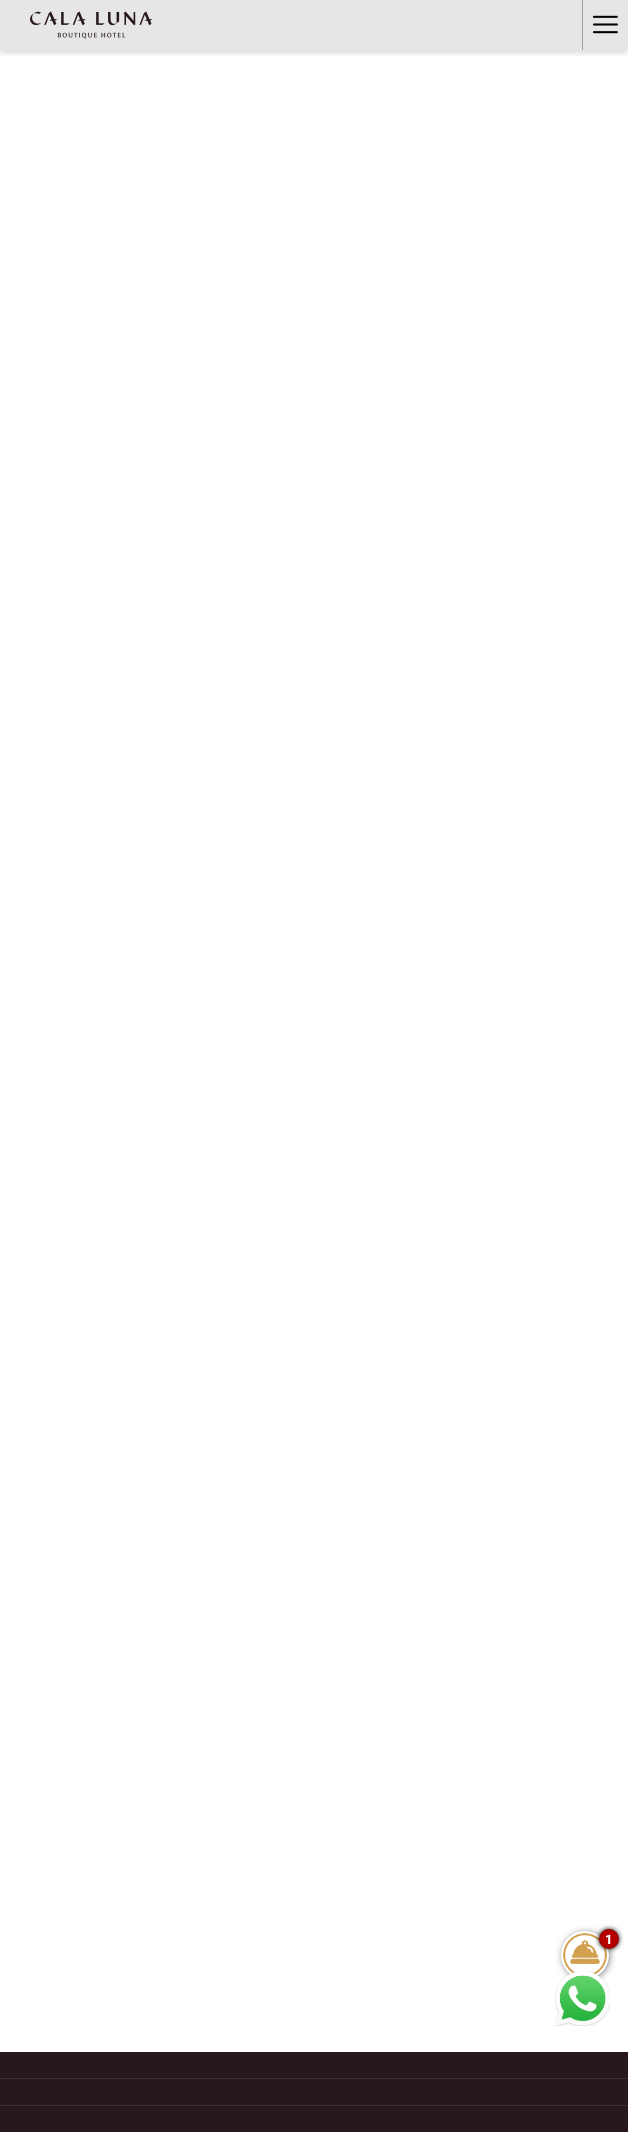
void draw(SkCanvas* canvas) {
    SkPaint paint;
    paint.setAntiAlias(true);
    canvas->clear(0xFFFFFFFF);
    paint.setColor(0xFFE6E6E6);
    canvas->drawRect(SkRect::MakeXYWH(0, 0, 628, 50), paint);
    canvas->save();
    canvas->clipRect(SkRect::MakeXYWH(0, 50, 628, 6));
    paint.setColor(0x26000000);
    paint.setMaskFilter(SkMaskFilter::MakeBlur(kNormal_SkBlurStyle, 3));
    canvas->drawRect(SkRect::MakeXYWH(0, 3, 628, 50), paint);
    paint.setMaskFilter(nullptr);
    canvas->restore();
    canvas->drawImageRect(SkImages::DeferredFromEncodedData(SkData::MakeFromFileName("img1.png")), SkRect::MakeXYWH(30, 11, 123, 28), SkSamplingOptions());
    paint.setColor(0xFFA1A1A1);
    canvas->drawRect(SkRect::MakeXYWH(582, 0, 1, 50), paint);
    canvas->drawImageRect(SkImages::DeferredFromEncodedData(SkData::MakeFromFileName("img2.png")), SkRect::MakeXYWH(593, 15, 25, 19), SkSamplingOptions());
    paint.setColor(0xFF000000);
    paint.setMaskFilter(SkMaskFilter::MakeBlur(kNormal_SkBlurStyle, 5));
    canvas->drawRoundRect(SkRect::MakeXYWH(565, 1935, 42, 42), 21, 21, paint);
    paint.setMaskFilter(nullptr);
    paint.setColor(0xFFFFFFFF);
    canvas->drawCircle(585, 1955, 23, paint);
    paint.setStyle(SkPaint::kStroke_Style);
    paint.setStrokeWidth(2);
    canvas->drawCircle(585, 1955, 23, paint);
    canvas->drawImageRect(SkImages::DeferredFromEncodedData(SkData::MakeFromFileName("img3.png")), SkRect::MakeXYWH(563, 1933, 44, 42), SkSamplingOptions());
    paint.setStyle(SkPaint::kFill_Style);
    paint.setColor(0xFF000000);
    paint.setMaskFilter(SkMaskFilter::MakeBlur(kNormal_SkBlurStyle, 2.5f));
    canvas->drawRoundRect(SkRect::MakeXYWH(599, 1929, 20, 20), 10, 10, paint);
    paint.setMaskFilter(nullptr);
    paint.setColor(0xFFB60000);
    canvas->drawCircle(609, 1939, 9, paint);
    paint.setStyle(SkPaint::kStroke_Style);
    paint.setColor(0xFFA30000);
    canvas->drawCircle(609, 1939, 9, paint);
    SkFont font1(fontMgr->matchFamilyStyle("Roboto", SkFontStyle::Bold()), 13);
    font1.setSubpixel(true);
    paint.setStyle(SkPaint::kFill_Style);
    paint.setColor(0xFFFFFFFF);
    canvas->drawString("1", 605, 1944, font1, paint);
    canvas->drawImageRect(SkImages::DeferredFromEncodedData(SkData::MakeFromFileName("img4.png")), SkRect::MakeXYWH(555, 1971, 55, 55), SkSamplingOptions());
    paint.setColor(0xFF26181E);
    canvas->drawRect(SkRect::MakeXYWH(0, 2052, 628, 80), paint);
    paint.setColor(0xFF3C2F35);
    canvas->drawRect(SkRect::MakeXYWH(0, 2078, 628, 1), paint);
    canvas->drawRect(SkRect::MakeXYWH(0, 2105, 628, 1), paint);
}
